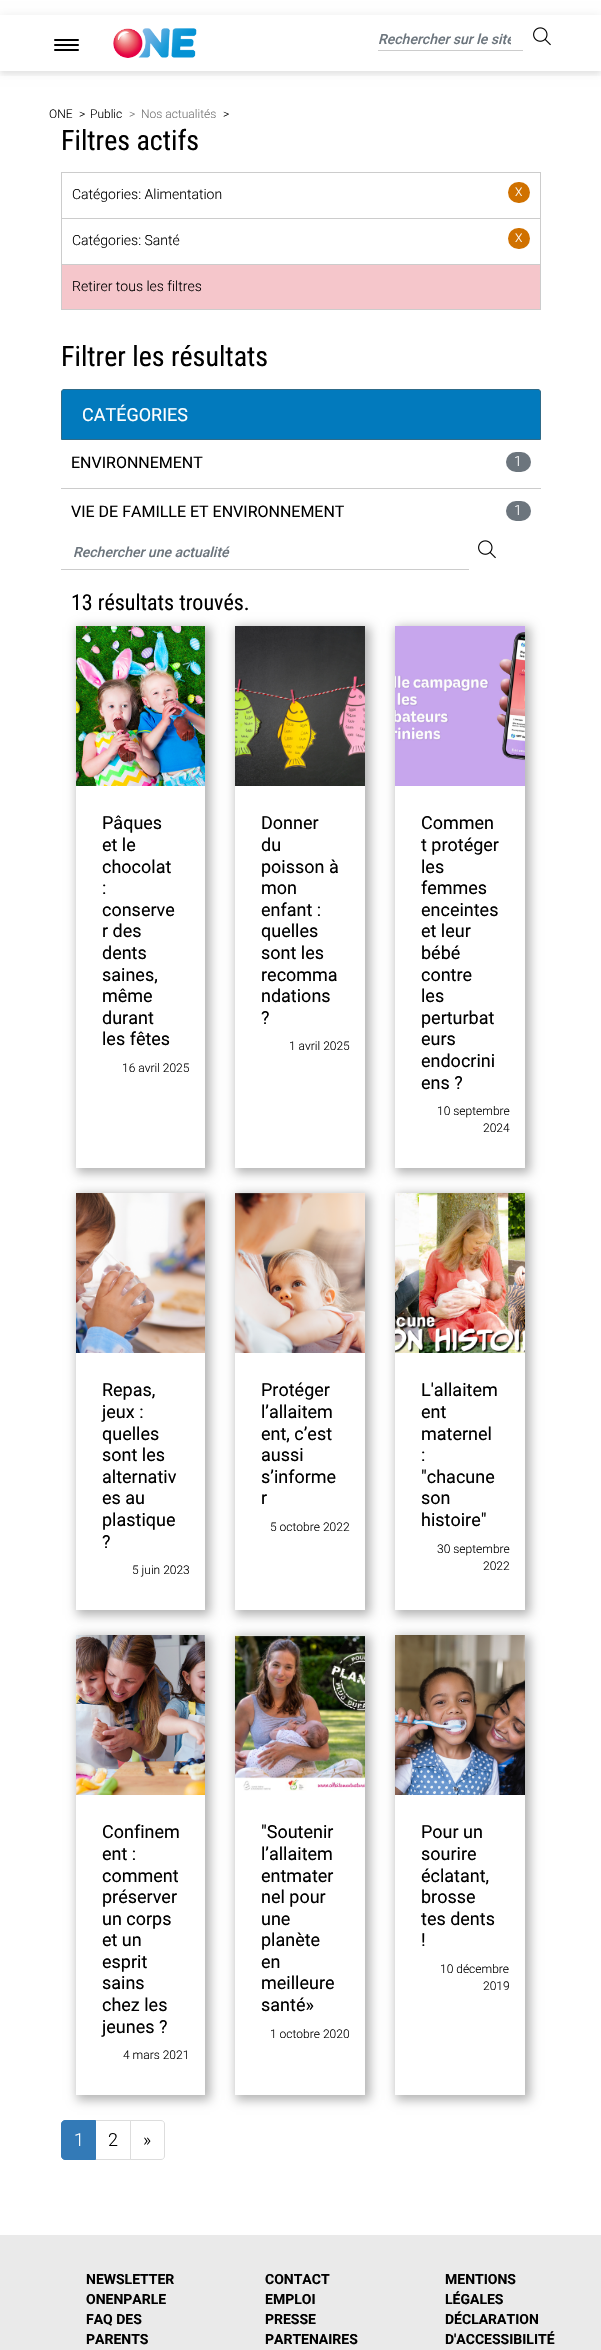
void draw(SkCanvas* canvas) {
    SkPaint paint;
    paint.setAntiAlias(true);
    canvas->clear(0xFFFFFFFF);
    canvas->save();
    canvas->clipPath(SkPathBuilder(SkPathFillType::kEvenOdd).moveTo(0, 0).lineTo(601, 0).lineTo(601, 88).lineTo(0, 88).close().moveTo(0, 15).lineTo(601, 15).lineTo(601, 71).lineTo(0, 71).close().detach(), true);
    paint.setColor(0x14000000);
    paint.setMaskFilter(SkMaskFilter::MakeBlur(kNormal_SkBlurStyle, 5));
    canvas->drawRect(SkRect::MakeXYWH(0, 16, 601, 56), paint);
    paint.setMaskFilter(nullptr);
    canvas->restore();
    canvas->save();
    canvas->clipRect(SkRect::MakeXYWH(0, 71, 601, 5));
    paint.setColor(0x0F000000);
    paint.setMaskFilter(SkMaskFilter::MakeBlur(kNormal_SkBlurStyle, 2.5f));
    canvas->drawRect(SkRect::MakeXYWH(0, 19, 601, 56), paint);
    paint.setMaskFilter(nullptr);
    canvas->restore();
    paint.setColor(0xFF000000);
    canvas->drawRoundRect(SkRect::MakeXYWH(54, 39, 25, 2), 1, 1, paint);
    canvas->drawRoundRect(SkRect::MakeXYWH(54, 44, 25, 2), 1, 1, paint);
    canvas->drawRoundRect(SkRect::MakeXYWH(54, 49, 25, 2), 1, 1, paint);
    canvas->drawImageRect(SkImages::DeferredFromEncodedData(SkData::MakeFromFileName("img1.png")), SkRect::MakeXYWH(113, 28, 84, 30), SkSamplingOptions());
    paint.setColor(0xFFCCCCCC);
    canvas->drawRect(SkRect::MakeXYWH(378, 50, 145, 1), paint);
    canvas->save();
    canvas->clipRect(SkRect::MakeXYWH(378, 31, 133, 16));
    SkFont font1(fontMgr->matchFamilyStyle("Roboto", SkFontStyle(500, SkFontStyle::kNormal_Width, SkFontStyle::kItalic_Slant)), 14);
    font1.setSubpixel(true);
    paint.setColor(0xFF6C757D);
    canvas->drawString("Rechercher sur le site", 378, 44, font1, paint);
    canvas->restore();
    canvas->drawImageRect(SkImages::DeferredFromEncodedData(SkData::MakeFromFileName("img2.png")), SkRect::MakeXYWH(533, 27, 18, 19), SkSamplingOptions());
    SkFont font2(fontMgr->matchFamilyStyle("Roboto", SkFontStyle(300, SkFontStyle::kNormal_Width, SkFontStyle::kUpright_Slant)), 12);
    font2.setSubpixel(true);
    paint.setColor(0xFF000000);
    canvas->drawString("ONE", 49, 118, font2, paint);
    canvas->drawString(">", 79, 118, font2, paint);
    canvas->drawString("Public", 90, 118, font2, paint);
    paint.setColor(0xFF767676);
    canvas->drawString(">", 129, 118, font2, paint);
    canvas->drawString("Nos actualités", 141, 118, font2, paint);
    paint.setColor(0xFF000000);
    canvas->drawString(">", 223, 118, font2, paint);
    SkFont font3(fontMgr->matchFamilyStyle("Roboto Condensed", SkFontStyle::Normal()), 28);
    font3.setSubpixel(true);
    canvas->drawString("Filtres actifs", 61, 150, font3, paint);
    paint.setStyle(SkPaint::kStroke_Style);
    paint.setStrokeWidth(1);
    paint.setColor(0xFFCCCCCC);
    canvas->drawRect(SkRect::MakeXYWH(61.5f, 172.5f, 479, 137), paint);
    SkFont font4(fontMgr->matchFamilyStyle("Roboto", SkFontStyle(300, SkFontStyle::kNormal_Width, SkFontStyle::kUpright_Slant)), 14);
    font4.setSubpixel(true);
    paint.setStyle(SkPaint::kFill_Style);
    paint.setColor(0xFF000000);
    canvas->drawString("Catégories: Alimentation", 72, 199, font4, paint);
    paint.setColor(0xFFD07100);
    canvas->drawRoundRect(SkRect::MakeXYWH(508, 182, 22, 21), 10.5f, 10.5f, paint);
    paint.setColor(0xFFFFFFFF);
    canvas->drawString("X", 515, 196, font2, paint);
    paint.setColor(0xFFCCCCCC);
    canvas->drawRect(SkRect::MakeXYWH(62, 218, 478, 1), paint);
    paint.setColor(0xFF000000);
    canvas->drawString("Catégories: Santé", 72, 245, font4, paint);
    paint.setColor(0xFFD07100);
    canvas->drawRoundRect(SkRect::MakeXYWH(508, 228, 22, 21), 10.5f, 10.5f, paint);
    paint.setColor(0xFFFFFFFF);
    canvas->drawString("X", 515, 242, font2, paint);
    paint.setColor(0xFFF5C6CB);
    canvas->drawRect(SkRect::MakeXYWH(62, 265, 478, 44), paint);
    paint.setColor(0xFFCCCCCC);
    canvas->drawRect(SkRect::MakeXYWH(62, 264, 478, 1), paint);
    paint.setColor(0xFF000000);
    canvas->drawString("Retirer tous les filtres", 72, 291, font4, paint);
    canvas->drawString("Filtrer les résultats", 61, 366, font3, paint);
    paint.setColor(0xFF027ABD);
    canvas->drawPath(SkPathBuilder().moveTo(64, 389.5f).lineTo(538, 389.5f).cubicTo(539.5f, 389.5f, 540.5f, 390.5f, 540.5f, 392).lineTo(540.5f, 439.5f).lineTo(61.5f, 439.5f).lineTo(61.5f, 392).cubicTo(61.5f, 390.5f, 62.5f, 389.5f, 64, 389.5f).close().detach(), paint);
    paint.setStyle(SkPaint::kStroke_Style);
    paint.setColor(0xFF306B88);
    canvas->drawPath(SkPathBuilder().moveTo(64, 389.5f).lineTo(538, 389.5f).cubicTo(539.5f, 389.5f, 540.5f, 390.5f, 540.5f, 392).lineTo(540.5f, 439.5f).lineTo(61.5f, 439.5f).lineTo(61.5f, 392).cubicTo(61.5f, 390.5f, 62.5f, 389.5f, 64, 389.5f).close().detach(), paint);
    SkFont font5(fontMgr->matchFamilyStyle("Roboto", SkFontStyle::Normal()), 18);
    font5.setSubpixel(true);
    paint.setStyle(SkPaint::kFill_Style);
    paint.setColor(0xFFFFFFFF);
    canvas->drawString("CATÉGORIES", 82, 421, font5, paint);
    SkFont font6(fontMgr->matchFamilyStyle("Roboto", SkFontStyle::Normal()), 16);
    font6.setSubpixel(true);
    paint.setColor(0xFF000000);
    canvas->drawString("ENVIRONNEMENT", 71, 468, font6, paint);
    paint.setColor(0xFF6C757D);
    canvas->drawRoundRect(SkRect::MakeXYWH(506, 452, 25, 20), 10, 10, paint);
    paint.setColor(0xFFFFFFFF);
    canvas->drawString("1", 514, 466, font4, paint);
    paint.setColor(0xFFCCCCCC);
    canvas->drawRect(SkRect::MakeXYWH(61, 488, 480, 1), paint);
    paint.setColor(0xFF000000);
    canvas->drawString("VIE DE FAMILLE ET ENVIRONNEMENT", 71, 517, font6, paint);
    paint.setColor(0xFF6C757D);
    canvas->drawRoundRect(SkRect::MakeXYWH(506, 501, 25, 20), 10, 10, paint);
    paint.setColor(0xFFFFFFFF);
    canvas->drawString("1", 514, 515, font4, paint);
    paint.setColor(0xFFCCCCCC);
    canvas->drawRect(SkRect::MakeXYWH(61, 569, 408, 1), paint);
    paint.setColor(0xFF6C757D);
    canvas->drawString("Rechercher une actualité", 73, 557, font1, paint);
    canvas->drawImageRect(SkImages::DeferredFromEncodedData(SkData::MakeFromFileName("img2.png")), SkRect::MakeXYWH(478, 540, 18, 19), SkSamplingOptions());
    SkFont font7(fontMgr->matchFamilyStyle("Roboto Condensed", SkFontStyle::Normal()), 22);
    font7.setSubpixel(true);
    paint.setColor(0xFF000000);
    canvas->drawString("13 résultats trouvés.", 71, 610, font7, paint);
    canvas->save();
    canvas->clipPath(SkPathBuilder(SkPathFillType::kEvenOdd).moveTo(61, 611).lineTo(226, 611).lineTo(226, 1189).lineTo(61, 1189).close().moveTo(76, 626).lineTo(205, 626).lineTo(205, 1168).lineTo(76, 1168).close().detach(), true);
    paint.setColor(0x4D000000);
    paint.setMaskFilter(SkMaskFilter::MakeBlur(kNormal_SkBlurStyle, 5));
    canvas->drawRect(SkRect::MakeXYWH(77, 627, 133, 546), paint);
    paint.setMaskFilter(nullptr);
    canvas->restore();
    canvas->drawImageRect(SkImages::DeferredFromEncodedData(SkData::MakeFromFileName("img3.png")), SkRect::MakeXYWH(76, 626, 129, 160), SkSamplingOptions());
    paint.setColor(0xFF000000);
    canvas->drawString("Pâques", 102, 829, font5, paint);
    canvas->drawString("et le", 102, 851, font5, paint);
    canvas->drawString("chocolat", 102, 873, font5, paint);
    canvas->drawString(":", 102, 894, font5, paint);
    canvas->drawString("conserve", 102, 916, font5, paint);
    canvas->drawString("r des", 102, 937, font5, paint);
    canvas->drawString("dents", 102, 959, font5, paint);
    canvas->drawString("saines,", 102, 981, font5, paint);
    canvas->drawString("même", 102, 1002, font5, paint);
    canvas->drawString("durant", 102, 1024, font5, paint);
    canvas->drawString("les fêtes", 102, 1045, font5, paint);
    canvas->drawString("16 avril 2025", 122, 1072, font2, paint);
    canvas->save();
    canvas->clipPath(SkPathBuilder(SkPathFillType::kEvenOdd).moveTo(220, 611).lineTo(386, 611).lineTo(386, 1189).lineTo(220, 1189).close().moveTo(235, 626).lineTo(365, 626).lineTo(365, 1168).lineTo(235, 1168).close().detach(), true);
    paint.setColor(0x4D000000);
    paint.setMaskFilter(SkMaskFilter::MakeBlur(kNormal_SkBlurStyle, 5));
    canvas->drawRect(SkRect::MakeXYWH(236, 627, 134, 546), paint);
    paint.setMaskFilter(nullptr);
    canvas->restore();
    canvas->drawImageRect(SkImages::DeferredFromEncodedData(SkData::MakeFromFileName("img4.png")), SkRect::MakeXYWH(235, 626, 130, 160), SkSamplingOptions());
    paint.setColor(0xFF000000);
    canvas->drawString("Donner", 261, 829, font5, paint);
    canvas->drawString("du", 261, 851, font5, paint);
    canvas->drawString("poisson à", 261, 873, font5, paint);
    canvas->drawString("mon", 261, 894, font5, paint);
    canvas->drawString("enfant :", 261, 916, font5, paint);
    canvas->drawString("quelles", 261, 937, font5, paint);
    canvas->drawString("sont les", 261, 959, font5, paint);
    canvas->drawString("recomma", 261, 981, font5, paint);
    canvas->drawString("ndations", 261, 1002, font5, paint);
    canvas->drawString("?", 261, 1024, font5, paint);
    canvas->drawString("1 avril 2025", 289, 1050, font2, paint);
    canvas->save();
    canvas->clipPath(SkPathBuilder(SkPathFillType::kEvenOdd).moveTo(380, 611).lineTo(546, 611).lineTo(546, 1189).lineTo(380, 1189).close().moveTo(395, 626).lineTo(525, 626).lineTo(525, 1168).lineTo(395, 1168).close().detach(), true);
    paint.setColor(0x4D000000);
    paint.setMaskFilter(SkMaskFilter::MakeBlur(kNormal_SkBlurStyle, 5));
    canvas->drawRect(SkRect::MakeXYWH(396, 627, 134, 546), paint);
    paint.setMaskFilter(nullptr);
    canvas->restore();
    canvas->drawImageRect(SkImages::DeferredFromEncodedData(SkData::MakeFromFileName("img5.png")), SkRect::MakeXYWH(395, 626, 130, 160), SkSamplingOptions());
    paint.setColor(0xFF000000);
    canvas->drawString("Commen", 421, 829, font5, paint);
    canvas->drawString("t protéger", 421, 851, font5, paint);
    canvas->drawString("les", 421, 873, font5, paint);
    canvas->drawString("femmes", 421, 894, font5, paint);
    canvas->drawString("enceintes", 421, 916, font5, paint);
    canvas->drawString("et leur", 421, 937, font5, paint);
    canvas->drawString("bébé", 421, 959, font5, paint);
    canvas->drawString("contre", 421, 981, font5, paint);
    canvas->drawString("les", 421, 1002, font5, paint);
    canvas->drawString("perturbat", 421, 1024, font5, paint);
    canvas->drawString("eurs", 421, 1045, font5, paint);
    canvas->drawString("endocrini", 421, 1067, font5, paint);
    canvas->drawString("ens ?", 421, 1089, font5, paint);
    canvas->drawString("10 septembre", 437, 1115, font2, paint);
    canvas->drawString("2024", 483, 1132, font2, paint);
    canvas->save();
    canvas->clipPath(SkPathBuilder(SkPathFillType::kEvenOdd).moveTo(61, 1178).lineTo(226, 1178).lineTo(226, 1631).lineTo(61, 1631).close().moveTo(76, 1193).lineTo(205, 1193).lineTo(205, 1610).lineTo(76, 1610).close().detach(), true);
    paint.setColor(0x4D000000);
    paint.setMaskFilter(SkMaskFilter::MakeBlur(kNormal_SkBlurStyle, 5));
    canvas->drawRect(SkRect::MakeXYWH(77, 1194, 133, 421), paint);
    paint.setMaskFilter(nullptr);
    canvas->restore();
    canvas->drawImageRect(SkImages::DeferredFromEncodedData(SkData::MakeFromFileName("img6.png")), SkRect::MakeXYWH(76, 1193, 129, 160), SkSamplingOptions());
    paint.setColor(0xFF000000);
    canvas->drawString("Repas,", 102, 1396, font5, paint);
    canvas->drawString("jeux :", 102, 1418, font5, paint);
    canvas->drawString("quelles", 102, 1440, font5, paint);
    canvas->drawString("sont les", 102, 1461, font5, paint);
    canvas->drawString("alternativ", 102, 1483, font5, paint);
    canvas->drawString("es au", 102, 1504, font5, paint);
    canvas->drawString("plastique", 102, 1526, font5, paint);
    canvas->drawString("?", 102, 1548, font5, paint);
    canvas->drawString("5 juin 2023", 132, 1574, font2, paint);
    canvas->save();
    canvas->clipPath(SkPathBuilder(SkPathFillType::kEvenOdd).moveTo(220, 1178).lineTo(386, 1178).lineTo(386, 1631).lineTo(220, 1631).close().moveTo(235, 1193).lineTo(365, 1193).lineTo(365, 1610).lineTo(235, 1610).close().detach(), true);
    paint.setColor(0x4D000000);
    paint.setMaskFilter(SkMaskFilter::MakeBlur(kNormal_SkBlurStyle, 5));
    canvas->drawRect(SkRect::MakeXYWH(236, 1194, 134, 421), paint);
    paint.setMaskFilter(nullptr);
    canvas->restore();
    canvas->drawImageRect(SkImages::DeferredFromEncodedData(SkData::MakeFromFileName("img7.png")), SkRect::MakeXYWH(235, 1193, 130, 160), SkSamplingOptions());
    paint.setColor(0xFF000000);
    canvas->drawString("Protéger", 261, 1396, font5, paint);
    canvas->drawString("l’allaitem", 261, 1418, font5, paint);
    canvas->drawString("ent, c’est", 261, 1440, font5, paint);
    canvas->drawString("aussi", 261, 1461, font5, paint);
    canvas->drawString("s’informe", 261, 1483, font5, paint);
    canvas->drawString("r", 261, 1504, font5, paint);
    canvas->drawString("5 octobre 2022", 270, 1531, font2, paint);
    canvas->save();
    canvas->clipPath(SkPathBuilder(SkPathFillType::kEvenOdd).moveTo(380, 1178).lineTo(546, 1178).lineTo(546, 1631).lineTo(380, 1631).close().moveTo(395, 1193).lineTo(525, 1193).lineTo(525, 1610).lineTo(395, 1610).close().detach(), true);
    paint.setColor(0x4D000000);
    paint.setMaskFilter(SkMaskFilter::MakeBlur(kNormal_SkBlurStyle, 5));
    canvas->drawRect(SkRect::MakeXYWH(396, 1194, 134, 421), paint);
    paint.setMaskFilter(nullptr);
    canvas->restore();
    canvas->drawImageRect(SkImages::DeferredFromEncodedData(SkData::MakeFromFileName("img8.png")), SkRect::MakeXYWH(395, 1193, 130, 160), SkSamplingOptions());
    paint.setColor(0xFF000000);
    canvas->drawString("L'allaitem", 421, 1396, font5, paint);
    canvas->drawString("ent", 421, 1418, font5, paint);
    canvas->drawString("maternel", 421, 1440, font5, paint);
    canvas->drawString(":", 421, 1461, font5, paint);
    canvas->drawString("\"chacune", 421, 1483, font5, paint);
    canvas->drawString("son", 421, 1504, font5, paint);
    canvas->drawString("histoire\"", 421, 1526, font5, paint);
    canvas->drawString("30 septembre", 437, 1553, font2, paint);
    canvas->drawString("2022", 483, 1570, font2, paint);
    canvas->save();
    canvas->clipPath(SkPathBuilder(SkPathFillType::kEvenOdd).moveTo(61, 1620).lineTo(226, 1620).lineTo(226, 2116).lineTo(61, 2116).close().moveTo(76, 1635).lineTo(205, 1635).lineTo(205, 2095).lineTo(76, 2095).close().detach(), true);
    paint.setColor(0x4D000000);
    paint.setMaskFilter(SkMaskFilter::MakeBlur(kNormal_SkBlurStyle, 5));
    canvas->drawRect(SkRect::MakeXYWH(77, 1636, 133, 464), paint);
    paint.setMaskFilter(nullptr);
    canvas->restore();
    canvas->drawImageRect(SkImages::DeferredFromEncodedData(SkData::MakeFromFileName("img9.png")), SkRect::MakeXYWH(76, 1635, 129, 160), SkSamplingOptions());
    paint.setColor(0xFF000000);
    canvas->drawString("Confinem", 102, 1838, font5, paint);
    canvas->drawString("ent :", 102, 1860, font5, paint);
    canvas->drawString("comment", 102, 1882, font5, paint);
    canvas->drawString("préserver", 102, 1903, font5, paint);
    canvas->drawString("un corps", 102, 1925, font5, paint);
    canvas->drawString("et un", 102, 1946, font5, paint);
    canvas->drawString("esprit", 102, 1968, font5, paint);
    canvas->drawString("sains", 102, 1989, font5, paint);
    canvas->drawString("chez les", 102, 2011, font5, paint);
    canvas->drawString("jeunes ?", 102, 2033, font5, paint);
    canvas->drawString("4 mars 2021", 123, 2059, font2, paint);
    canvas->save();
    canvas->clipPath(SkPathBuilder(SkPathFillType::kEvenOdd).moveTo(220, 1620).lineTo(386, 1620).lineTo(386, 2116).lineTo(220, 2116).close().moveTo(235, 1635).lineTo(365, 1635).lineTo(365, 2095).lineTo(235, 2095).close().detach(), true);
    paint.setColor(0x4D000000);
    paint.setMaskFilter(SkMaskFilter::MakeBlur(kNormal_SkBlurStyle, 5));
    canvas->drawRect(SkRect::MakeXYWH(236, 1636, 134, 464), paint);
    paint.setMaskFilter(nullptr);
    canvas->restore();
    canvas->drawImageRect(SkImages::DeferredFromEncodedData(SkData::MakeFromFileName("img10.png")), SkRect::MakeXYWH(235, 1635, 130, 156), SkSamplingOptions());
    paint.setColor(0xFF000000);
    canvas->drawString("\"Soutenir", 261, 1838, font5, paint);
    canvas->drawString("l’allaitem", 261, 1860, font5, paint);
    canvas->drawString("ent mater", 261, 1882, font5, paint);
    canvas->drawString("nel pour", 261, 1903, font5, paint);
    canvas->drawString("une", 261, 1925, font5, paint);
    canvas->drawString("planète", 261, 1946, font5, paint);
    canvas->drawString("en", 261, 1968, font5, paint);
    canvas->drawString("meilleure", 261, 1989, font5, paint);
    canvas->drawString("santé »", 261, 2011, font5, paint);
    canvas->drawString("1 octobre 2020", 270, 2038, font2, paint);
    canvas->save();
    canvas->clipPath(SkPathBuilder(SkPathFillType::kEvenOdd).moveTo(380, 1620).lineTo(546, 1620).lineTo(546, 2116).lineTo(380, 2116).close().moveTo(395, 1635).lineTo(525, 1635).lineTo(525, 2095).lineTo(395, 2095).close().detach(), true);
    paint.setColor(0x4D000000);
    paint.setMaskFilter(SkMaskFilter::MakeBlur(kNormal_SkBlurStyle, 5));
    canvas->drawRect(SkRect::MakeXYWH(396, 1636, 134, 464), paint);
    paint.setMaskFilter(nullptr);
    canvas->restore();
    canvas->drawImageRect(SkImages::DeferredFromEncodedData(SkData::MakeFromFileName("img11.png")), SkRect::MakeXYWH(395, 1635, 130, 160), SkSamplingOptions());
    paint.setColor(0xFF000000);
    canvas->drawString("Pour un", 421, 1838, font5, paint);
    canvas->drawString("sourire", 421, 1860, font5, paint);
    canvas->drawString("éclatant,", 421, 1882, font5, paint);
    canvas->drawString("brosse", 421, 1903, font5, paint);
    canvas->drawString("tes dents", 421, 1925, font5, paint);
    canvas->drawString("!", 421, 1946, font5, paint);
    canvas->drawString("10 décembre", 440, 1973, font2, paint);
    canvas->drawString("2019", 483, 1990, font2, paint);
    paint.setStyle(SkPaint::kStroke_Style);
    paint.setColor(0xFFDDDDDD);
    canvas->drawRect(SkRect::MakeXYWH(95.5f, 2120.5f, 35, 39), paint);
    paint.setStyle(SkPaint::kFill_Style);
    paint.setColor(0xFF337AB7);
    canvas->drawPath(SkPathBuilder().moveTo(65, 2120.5f).lineTo(95.5f, 2120.5f).lineTo(95.5f, 2159.5f).lineTo(65, 2159.5f).cubicTo(63, 2159.5f, 61.5f, 2158, 61.5f, 2156).lineTo(61.5f, 2124).cubicTo(61.5f, 2122, 63, 2120.5f, 65, 2120.5f).close().detach(), paint);
    paint.setStyle(SkPaint::kStroke_Style);
    canvas->drawPath(SkPathBuilder().moveTo(65, 2120.5f).lineTo(95.5f, 2120.5f).lineTo(95.5f, 2159.5f).lineTo(65, 2159.5f).cubicTo(63, 2159.5f, 61.5f, 2158, 61.5f, 2156).lineTo(61.5f, 2124).cubicTo(61.5f, 2122, 63, 2120.5f, 65, 2120.5f).close().detach(), paint);
    SkFont font8(fontMgr->matchFamilyStyle("Roboto", SkFontStyle(300, SkFontStyle::kNormal_Width, SkFontStyle::kUpright_Slant)), 18);
    font8.setSubpixel(true);
    paint.setStyle(SkPaint::kFill_Style);
    paint.setColor(0xFFFFFFFF);
    canvas->drawString("1", 74, 2146, font8, paint);
    paint.setColor(0xFF000000);
    canvas->drawString("2", 108, 2146, font8, paint);
    paint.setColor(0xFFFFFFFF);
    canvas->drawPath(SkPathBuilder().moveTo(130.5f, 2120.5f).lineTo(161, 2120.5f).cubicTo(163, 2120.5f, 164.5f, 2122, 164.5f, 2124).lineTo(164.5f, 2156).cubicTo(164.5f, 2158, 163, 2159.5f, 161, 2159.5f).lineTo(130.5f, 2159.5f).close().detach(), paint);
    paint.setStyle(SkPaint::kStroke_Style);
    paint.setColor(0xFFDDDDDD);
    canvas->drawPath(SkPathBuilder().moveTo(130.5f, 2120.5f).lineTo(161, 2120.5f).cubicTo(163, 2120.5f, 164.5f, 2122, 164.5f, 2124).lineTo(164.5f, 2156).cubicTo(164.5f, 2158, 163, 2159.5f, 161, 2159.5f).lineTo(130.5f, 2159.5f).close().detach(), paint);
    paint.setStyle(SkPaint::kFill_Style);
    paint.setColor(0xFF000000);
    canvas->drawString("»", 143, 2146, font8, paint);
    paint.setColor(0xFFEAEAEA);
    canvas->drawRect(SkRect::MakeXYWH(0, 2235, 601, 115), paint);
    SkFont font9(fontMgr->matchFamilyStyle("Roboto", SkFontStyle::Bold()), 14);
    font9.setSubpixel(true);
    paint.setColor(0xFF000000);
    canvas->drawString("NEWSLETTER", 86, 2284, font9, paint);
    canvas->drawString("ONENPARLE", 86, 2304, font9, paint);
    canvas->drawString("FAQ DES", 86, 2324, font9, paint);
    canvas->drawString("PARENTS", 86, 2344, font9, paint);
    canvas->drawString("CONTACT", 265, 2284, font9, paint);
    canvas->drawString("EMPLOI", 265, 2304, font9, paint);
    canvas->drawString("PRESSE", 265, 2324, font9, paint);
    canvas->drawString("PARTENAIRES", 265, 2344, font9, paint);
    canvas->drawString("MENTIONS", 445, 2284, font9, paint);
    canvas->drawString("LÉGALES", 445, 2304, font9, paint);
    canvas->drawString("DÉCLARATION", 445, 2324, font9, paint);
    canvas->drawString("D'ACCESSIBILITÉ", 445, 2344, font9, paint);
}
